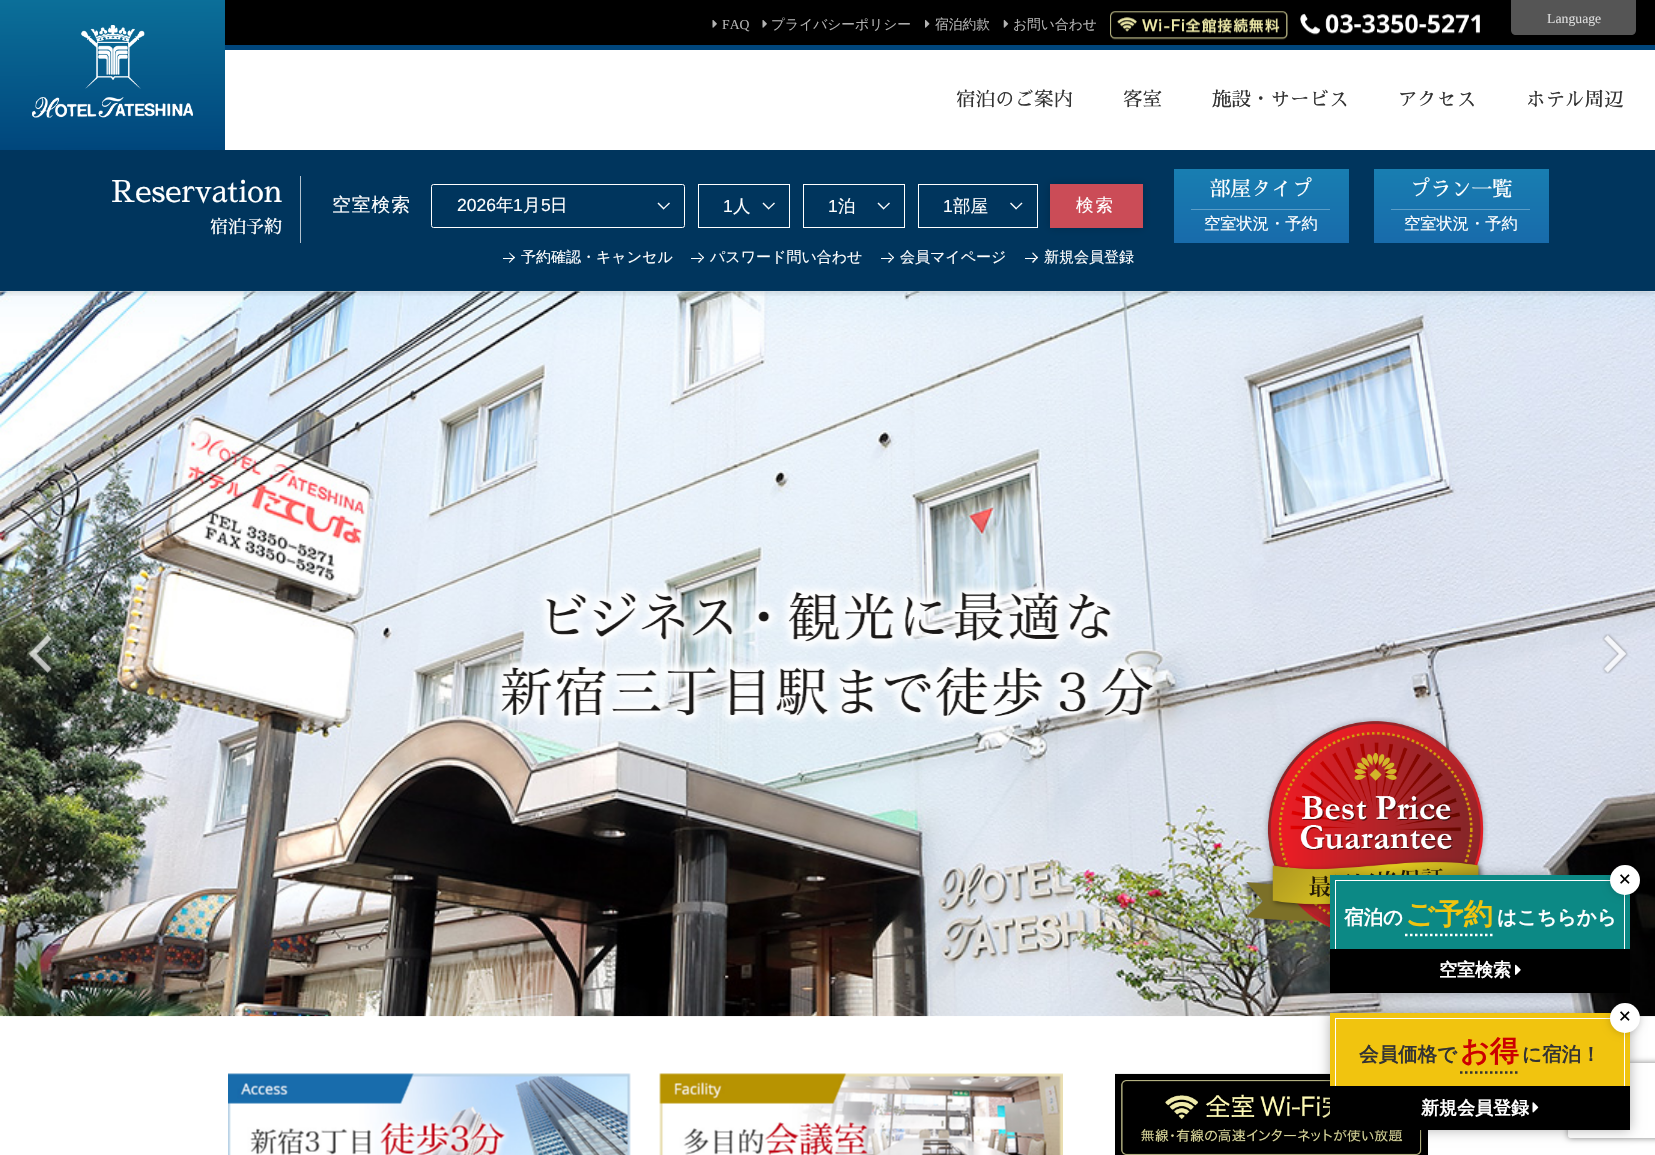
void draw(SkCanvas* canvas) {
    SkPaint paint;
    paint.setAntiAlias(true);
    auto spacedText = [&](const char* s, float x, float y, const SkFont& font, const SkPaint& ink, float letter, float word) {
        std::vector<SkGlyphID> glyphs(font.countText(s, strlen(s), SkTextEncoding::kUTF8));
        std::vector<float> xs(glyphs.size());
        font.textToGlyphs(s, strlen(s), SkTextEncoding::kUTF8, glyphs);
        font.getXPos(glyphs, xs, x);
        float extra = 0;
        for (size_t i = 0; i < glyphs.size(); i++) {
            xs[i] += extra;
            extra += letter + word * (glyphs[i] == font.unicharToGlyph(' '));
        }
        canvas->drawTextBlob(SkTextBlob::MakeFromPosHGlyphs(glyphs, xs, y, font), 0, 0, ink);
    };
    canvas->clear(0xFFFFFFFF);
    canvas->drawImageRect(SkImages::DeferredFromEncodedData(SkData::MakeFromFileName("img7.png")), SkRect::MakeXYWH(0, 291, 1655, 726), SkSamplingOptions());
    canvas->save();
    canvas->clipRect(SkRect::MakeXYWH(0, 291, 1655, 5));
    paint.setColor(0x33000000);
    paint.setMaskFilter(SkMaskFilter::MakeBlur(kNormal_SkBlurStyle, 4));
    canvas->drawRect(SkRect::MakeXYWH(0, 0, 1655, 291), paint);
    paint.setMaskFilter(nullptr);
    canvas->restore();
    paint.setColor(0xFF000000);
    canvas->drawRect(SkRect::MakeXYWH(225, 0, 1430, 45), paint);
    paint.setColor(0xFF00467C);
    canvas->drawRect(SkRect::MakeXYWH(225, 45, 1430, 5), paint);
    canvas->drawImageRect(SkImages::DeferredFromEncodedData(SkData::MakeFromFileName("img1.png")), SkRect::MakeXYWH(712, 20, 5, 8), SkSamplingOptions());
    SkFont font1(fontMgr->matchFamilyStyle("Liberation Serif", SkFontStyle::Normal()), 13.75f);
    font1.setSubpixel(true);
    paint.setColor(0xFFB3B3B3);
    canvas->drawString("FAQ", 722, 29, font1, paint);
    canvas->drawImageRect(SkImages::DeferredFromEncodedData(SkData::MakeFromFileName("img1.png")), SkRect::MakeXYWH(762, 20, 5, 8), SkSamplingOptions());
    SkFont font2(fontMgr->matchFamilyStyle("WenQuanYi Zen Hei", SkFontStyle(500, SkFontStyle::kNormal_Width, SkFontStyle::kUpright_Slant)), 13.75f);
    font2.setSubpixel(true);
    canvas->drawString("プライバシーポリシー", 771, 29, font2, paint);
    canvas->drawImageRect(SkImages::DeferredFromEncodedData(SkData::MakeFromFileName("img2.png")), SkRect::MakeXYWH(925, 19, 5, 9), SkSamplingOptions());
    canvas->drawString("宿泊約款", 935, 29, font2, paint);
    canvas->drawImageRect(SkImages::DeferredFromEncodedData(SkData::MakeFromFileName("img3.png")), SkRect::MakeXYWH(1003, 19, 6, 9), SkSamplingOptions());
    canvas->drawString("お問い合わせ", 1013, 29, font2, paint);
    canvas->drawImageRect(SkImages::DeferredFromEncodedData(SkData::MakeFromFileName("img4.png")), SkRect::MakeXYWH(1110, 11, 178, 29), SkSamplingOptions());
    canvas->drawImageRect(SkImages::DeferredFromEncodedData(SkData::MakeFromFileName("img5.png")), SkRect::MakeXYWH(1300, 13, 180, 22), SkSamplingOptions());
    paint.setColor(0xFF555555);
    canvas->drawPath(SkPathBuilder().moveTo(1511, 0).lineTo(1636, 0).lineTo(1636, 30).cubicTo(1636, 33, 1634, 35, 1631, 35).lineTo(1516, 35).cubicTo(1513, 35, 1511, 33, 1511, 30).close().detach(), paint);
    paint.setColor(0xFFDDDDDD);
    canvas->drawString("Language", 1547, 23, font1, paint);
    {
        const SkColor colors[] = {0xFF0B6F99, 0xFF00467C};
        const float stops[] = {0, 1};
        const SkPoint ends[] = {{112, 0}, {113, 150}};
        paint.setShader(SkGradientShader::MakeLinear(ends, colors, stops, 2, SkTileMode::kClamp));
        paint.setAlpha(255);
    }
    canvas->drawRect(SkRect::MakeXYWH(0, 0, 225, 150), paint);
    canvas->drawImageRect(SkImages::DeferredFromEncodedData(SkData::MakeFromFileName("img6.png")), SkRect::MakeXYWH(32, 25, 161, 93), SkSamplingOptions());
    SkFont font3(fontMgr->matchFamilyStyle("Sawarabi Mincho", SkFontStyle::Normal()), 19.5f);
    font3.setSubpixel(true);
    paint.setShader(nullptr);
    paint.setColor(0xFF333333);
    canvas->drawString("宿泊のご案内", 956, 106, font3, paint);
    canvas->drawString("客室", 1123, 106, font3, paint);
    canvas->drawString("施設・サービス", 1212, 106, font3, paint);
    canvas->drawString("アクセス", 1398, 106, font3, paint);
    canvas->drawString("ホテル周辺", 1526, 106, font3, paint);
    paint.setColor(0xFF00355D);
    canvas->drawRect(SkRect::MakeXYWH(0, 150, 1655, 141), paint);
    SkFont font4(fontMgr->matchFamilyStyle("Sawarabi Mincho", SkFontStyle::Normal()), 30);
    font4.setSubpixel(true);
    paint.setColor(0xFFFFFFFF);
    canvas->drawString("Reservation", 111, 202, font4, paint);
    SkFont font5(fontMgr->matchFamilyStyle("Sawarabi Mincho", SkFontStyle::Normal()), 18);
    font5.setSubpixel(true);
    canvas->drawString("宿泊予約", 210, 233, font5, paint);
    paint.setColor(0xFFB3C2CE);
    canvas->drawRect(SkRect::MakeXYWH(300, 176, 1, 67), paint);
    SkFont font6(fontMgr->matchFamilyStyle("WenQuanYi Zen Hei", SkFontStyle(500, SkFontStyle::kNormal_Width, SkFontStyle::kUpright_Slant)), 18.75f);
    font6.setSubpixel(true);
    paint.setColor(0xFFFFFFFF);
    spacedText("空室検索", 332, 211, font6, paint, 1, 0);
    paint.setStyle(SkPaint::kStroke_Style);
    paint.setStrokeWidth(1);
    canvas->drawRoundRect(SkRect::MakeXYWH(431.5f, 184.5f, 253, 43), 2, 2, paint);
    SkFont font7(fontMgr->matchFamilyStyle("Liberation Sans", SkFontStyle::Normal()), 17.5f);
    font7.setSubpixel(true);
    paint.setStyle(SkPaint::kFill_Style);
    canvas->drawString("2026", 457, 211, font7, paint);
    SkFont font8(fontMgr->matchFamilyStyle("WenQuanYi Zen Hei", SkFontStyle(500, SkFontStyle::kNormal_Width, SkFontStyle::kUpright_Slant)), 17.5f);
    font8.setSubpixel(true);
    canvas->drawString("年", 496, 211, font8, paint);
    canvas->drawString("1", 513, 211, font7, paint);
    canvas->drawString("月", 523, 211, font8, paint);
    canvas->drawString("5", 541, 211, font7, paint);
    canvas->drawString("日", 550, 211, font8, paint);
    canvas->drawPath(SkPathBuilder().moveTo(669, 202.5f).lineTo(670, 203.5f).lineTo(663.5f, 209.5f).lineTo(663, 208.5f).close().detach(), paint);
    canvas->drawPath(SkPathBuilder().moveTo(658.5f, 202.5f).lineTo(664.5f, 208.5f).lineTo(663.5f, 209.5f).lineTo(657.5f, 203.5f).close().detach(), paint);
    paint.setStyle(SkPaint::kStroke_Style);
    canvas->drawRect(SkRect::MakeXYWH(698.5f, 184.5f, 91, 43), paint);
    paint.setStyle(SkPaint::kFill_Style);
    canvas->drawString("1", 723, 212, font7, paint);
    canvas->drawString("人", 733, 212, font8, paint);
    canvas->drawPath(SkPathBuilder().moveTo(774, 202.5f).lineTo(775, 203.5f).lineTo(768.5f, 209.5f).lineTo(768, 208.5f).close().detach(), paint);
    canvas->drawPath(SkPathBuilder().moveTo(763.5f, 202.5f).lineTo(769.5f, 208.5f).lineTo(768.5f, 209.5f).lineTo(762.5f, 203.5f).close().detach(), paint);
    paint.setStyle(SkPaint::kStroke_Style);
    canvas->drawRect(SkRect::MakeXYWH(803.5f, 184.5f, 101, 43), paint);
    paint.setStyle(SkPaint::kFill_Style);
    canvas->drawString("1", 828, 212, font7, paint);
    canvas->drawString("泊", 838, 212, font8, paint);
    canvas->drawPath(SkPathBuilder().moveTo(889, 202.5f).lineTo(890, 203.5f).lineTo(883.5f, 209.5f).lineTo(883, 208.5f).close().detach(), paint);
    canvas->drawPath(SkPathBuilder().moveTo(878.5f, 202.5f).lineTo(884.5f, 208.5f).lineTo(883.5f, 209.5f).lineTo(877.5f, 203.5f).close().detach(), paint);
    paint.setColor(0x33000000);
    paint.setMaskFilter(SkMaskFilter::MakeBlur(kNormal_SkBlurStyle, 4));
    canvas->drawRect(SkRect::MakeXYWH(1050, 184, 93, 44), paint);
    paint.setMaskFilter(nullptr);
    paint.setStyle(SkPaint::kStroke_Style);
    paint.setColor(0xFFFFFFFF);
    canvas->drawRect(SkRect::MakeXYWH(918.5f, 184.5f, 119, 43), paint);
    paint.setStyle(SkPaint::kFill_Style);
    canvas->drawString("1", 943, 212, font7, paint);
    canvas->drawString("部屋", 953, 212, font8, paint);
    canvas->drawPath(SkPathBuilder().moveTo(1021.5f, 202.5f).lineTo(1022.5f, 203.5f).lineTo(1016, 209.5f).lineTo(1015.5f, 208.5f).close().detach(), paint);
    canvas->drawPath(SkPathBuilder().moveTo(1011, 202.5f).lineTo(1017, 208.5f).lineTo(1016, 209.5f).lineTo(1010, 203.5f).close().detach(), paint);
    paint.setColor(0xFFCB4C57);
    canvas->drawRect(SkRect::MakeXYWH(1050, 184, 93, 44), paint);
    paint.setColor(0xFFFFFFFF);
    spacedText("検索", 1076, 211, font8, paint, 2, 0);
    {
        const SkColor colors[] = {0xFF187EB1, 0xFF186BAB};
        const float stops[] = {0, 1};
        const SkPoint ends[] = {{1261, 169}, {1261, 243}};
        paint.setShader(SkGradientShader::MakeLinear(ends, colors, stops, 2, SkTileMode::kClamp));
        paint.setAlpha(255);
    }
    canvas->drawRect(SkRect::MakeXYWH(1174, 169, 175, 74), paint);
    paint.setShader(nullptr);
    paint.setColor(0xFF5D9EC6);
    canvas->drawRect(SkRect::MakeXYWH(1191, 209, 139, 1), paint);
    SkFont font9(fontMgr->matchFamilyStyle("Sawarabi Mincho", SkFontStyle::Normal()), 20.5f);
    font9.setSubpixel(true);
    paint.setColor(0xFFFFFFFF);
    canvas->drawString("部屋タイプ", 1210, 196, font9, paint);
    SkFont font10(fontMgr->matchFamilyStyle("WenQuanYi Zen Hei", SkFontStyle(500, SkFontStyle::kNormal_Width, SkFontStyle::kUpright_Slant)), 16.25f);
    font10.setSubpixel(true);
    canvas->drawString("空室状況・予約", 1204, 229, font10, paint);
    {
        const SkColor colors[] = {0xFF187EB1, 0xFF186BAB};
        const float stops[] = {0, 1};
        const SkPoint ends[] = {{1461, 169}, {1461, 243}};
        paint.setShader(SkGradientShader::MakeLinear(ends, colors, stops, 2, SkTileMode::kClamp));
        paint.setAlpha(255);
    }
    canvas->drawRect(SkRect::MakeXYWH(1374, 169, 175, 74), paint);
    paint.setShader(nullptr);
    paint.setColor(0xFF5D9EC6);
    canvas->drawRect(SkRect::MakeXYWH(1391, 209, 139, 1), paint);
    paint.setColor(0xFFFFFFFF);
    canvas->drawString("プラン一覧", 1410, 196, font9, paint);
    canvas->drawString("空室状況・予約", 1404, 229, font10, paint);
    canvas->drawRect(SkRect::MakeXYWH(503, 258, 10, 1), paint);
    canvas->drawPath(SkPathBuilder().moveTo(509.5f, 252.5f).lineTo(515, 257.5f).lineTo(514, 258.5f).lineTo(509, 253).close().detach(), paint);
    canvas->drawPath(SkPathBuilder().moveTo(514, 256.5f).lineTo(515, 257.5f).lineTo(509.5f, 263).lineTo(509, 262).close().detach(), paint);
    SkFont font11(fontMgr->matchFamilyStyle("WenQuanYi Zen Hei", SkFontStyle(500, SkFontStyle::kNormal_Width, SkFontStyle::kUpright_Slant)), 15);
    font11.setSubpixel(true);
    canvas->drawString("予約確認・キャンセル", 521, 262, font11, paint);
    canvas->drawRect(SkRect::MakeXYWH(691, 258, 10, 1), paint);
    canvas->drawPath(SkPathBuilder().moveTo(699, 252.5f).lineTo(704, 257.5f).lineTo(703.5f, 258.5f).lineTo(698, 253).close().detach(), paint);
    canvas->drawPath(SkPathBuilder().moveTo(703.5f, 256.5f).lineTo(704, 257.5f).lineTo(699, 263).lineTo(698, 262).close().detach(), paint);
    canvas->drawString("パスワード問い合わせ", 710, 262, font11, paint);
    canvas->drawRect(SkRect::MakeXYWH(881, 258, 10, 1), paint);
    canvas->drawPath(SkPathBuilder().moveTo(889, 252.5f).lineTo(894, 257.5f).lineTo(893.5f, 258.5f).lineTo(888, 253).close().detach(), paint);
    canvas->drawPath(SkPathBuilder().moveTo(893.5f, 256.5f).lineTo(894, 257.5f).lineTo(889, 263).lineTo(888, 262).close().detach(), paint);
    canvas->drawString("会員マイページ", 900, 262, font11, paint);
    canvas->drawRect(SkRect::MakeXYWH(1025, 258, 10, 1), paint);
    canvas->drawPath(SkPathBuilder().moveTo(1033, 252.5f).lineTo(1038, 257.5f).lineTo(1037, 258.5f).lineTo(1032, 253).close().detach(), paint);
    canvas->drawPath(SkPathBuilder().moveTo(1037, 256.5f).lineTo(1038, 257.5f).lineTo(1033, 263).lineTo(1032, 262).close().detach(), paint);
    canvas->drawString("新規会員登録", 1044, 262, font11, paint);
    canvas->drawImageRect(SkImages::DeferredFromEncodedData(SkData::MakeFromFileName("img8.png")), SkRect::MakeXYWH(492, 583, 670, 141), SkSamplingOptions());
    canvas->drawImageRect(SkImages::DeferredFromEncodedData(SkData::MakeFromFileName("img9.png")), SkRect::MakeXYWH(29, 634, 24, 40), SkSamplingOptions());
    canvas->drawImageRect(SkImages::DeferredFromEncodedData(SkData::MakeFromFileName("img10.png")), SkRect::MakeXYWH(1602, 633, 27, 41), SkSamplingOptions());
    canvas->drawImageRect(SkImages::DeferredFromEncodedData(SkData::MakeFromFileName("img11.png")), SkRect::MakeXYWH(1245, 717, 243, 215), SkSamplingOptions());
    canvas->drawImageRect(SkImages::DeferredFromEncodedData(SkData::MakeFromFileName("img16.png")), SkRect::MakeXYWH(1115, 1073, 313, 82), SkSamplingOptions());
    paint.setColor(0x4D000000);
    paint.setMaskFilter(SkMaskFilter::MakeBlur(kNormal_SkBlurStyle, 6));
    canvas->drawRect(SkRect::MakeXYWH(1330, 1013, 300, 117), paint);
    paint.setMaskFilter(nullptr);
    canvas->save();
    canvas->clipPath(SkPathBuilder(SkPathFillType::kEvenOdd).moveTo(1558, 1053).lineTo(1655, 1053).lineTo(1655, 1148).lineTo(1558, 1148).close().moveTo(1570.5f, 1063).lineTo(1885.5f, 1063).cubicTo(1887, 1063, 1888, 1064, 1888, 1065.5f).lineTo(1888, 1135.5f).cubicTo(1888, 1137, 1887, 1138, 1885.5f, 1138).lineTo(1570.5f, 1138).cubicTo(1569, 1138, 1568, 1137, 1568, 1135.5f).lineTo(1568, 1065.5f).cubicTo(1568, 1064, 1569, 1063, 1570.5f, 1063).close().detach(), true);
    paint.setColor(0xFF808080);
    paint.setMaskFilter(SkMaskFilter::MakeBlur(kNormal_SkBlurStyle, 3));
    canvas->drawRoundRect(SkRect::MakeXYWH(1568, 1063, 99, 75), 2.5f, 2.5f, paint);
    paint.setMaskFilter(nullptr);
    canvas->restore();
    paint.setColor(0xFFF1C40F);
    canvas->drawRect(SkRect::MakeXYWH(1330, 1013, 300, 73), paint);
    paint.setStyle(SkPaint::kStroke_Style);
    paint.setStrokeWidth(2.5f);
    paint.setColor(0xFF333333);
    paint.setPathEffect(SkDashPathEffect::Make({{2.5f, 2.5f}}, 0));
    canvas->drawPath(SkPathBuilder().moveTo(1460, 1072.5f).lineTo(1519, 1072.5f).detach(), paint);
    paint.setPathEffect(nullptr);
    paint.setStrokeWidth(1);
    paint.setColor(0xFFFFFFFF);
    canvas->drawRect(SkRect::MakeXYWH(1335.5f, 1018.5f, 289, 106), paint);
    paint.setStyle(SkPaint::kFill_Style);
    paint.setColor(0x33000000);
    paint.setMaskFilter(SkMaskFilter::MakeBlur(kNormal_SkBlurStyle, 4));
    canvas->drawRoundRect(SkRect::MakeXYWH(1610, 1003, 30, 30), 15, 15, paint);
    paint.setMaskFilter(nullptr);
    paint.setColor(0xFFFFFFFF);
    canvas->drawCircle(1625, 1018, 15, paint);
    paint.setColor(0x4D000000);
    paint.setMaskFilter(SkMaskFilter::MakeBlur(kNormal_SkBlurStyle, 6));
    canvas->drawRect(SkRect::MakeXYWH(1330, 875, 300, 118), paint);
    paint.setMaskFilter(nullptr);
    paint.setColor(0xFF0C8985);
    canvas->drawRect(SkRect::MakeXYWH(1330, 875, 300, 74), paint);
    paint.setStyle(SkPaint::kStroke_Style);
    paint.setStrokeWidth(2.5f);
    paint.setColor(0xFFFFFFFF);
    paint.setPathEffect(SkDashPathEffect::Make({{2.5f, 2.5f}}, 0));
    canvas->drawPath(SkPathBuilder().moveTo(1405, 935).lineTo(1494, 935).detach(), paint);
    paint.setPathEffect(nullptr);
    paint.setStrokeWidth(1);
    canvas->drawRect(SkRect::MakeXYWH(1335.5f, 880.5f, 289, 107), paint);
    paint.setStyle(SkPaint::kFill_Style);
    paint.setColor(0x33000000);
    paint.setMaskFilter(SkMaskFilter::MakeBlur(kNormal_SkBlurStyle, 4));
    canvas->drawRoundRect(SkRect::MakeXYWH(1610, 865, 30, 30), 15, 15, paint);
    paint.setMaskFilter(nullptr);
    paint.setColor(0xFFFFFFFF);
    canvas->drawCircle(1625, 880, 15, paint);
    SkFont font12(fontMgr->matchFamilyStyle("DejaVu Sans", SkFontStyle::Normal()), 16.25f);
    font12.setSubpixel(true);
    paint.setColor(0xFF000000);
    canvas->drawString("✕", 1618, 885, font12, paint);
    SkFont font13(fontMgr->matchFamilyStyle("WenQuanYi Zen Hei", SkFontStyle::Bold()), 19.5f);
    font13.setSubpixel(true);
    paint.setColor(0xFFFFFFFF);
    canvas->drawString("宿泊の", 1344, 924, font13, paint);
    SkFont font14(fontMgr->matchFamilyStyle("WenQuanYi Zen Hei", SkFontStyle::Bold()), 29);
    font14.setSubpixel(true);
    paint.setColor(0xFFF1C40F);
    canvas->drawString("ご予約", 1405, 924, font14, paint);
    paint.setColor(0xFFFFFFFF);
    canvas->drawString("はこちらから", 1497, 924, font13, paint);
    paint.setColor(0xFF000000);
    canvas->drawRect(SkRect::MakeXYWH(1330, 949, 300, 44), paint);
    SkFont font15(fontMgr->matchFamilyStyle("WenQuanYi Zen Hei", SkFontStyle::Bold()), 18);
    font15.setSubpixel(true);
    paint.setColor(0xFFFFFFFF);
    canvas->drawString("空室検索", 1439, 976, font15, paint);
    canvas->drawImageRect(SkImages::DeferredFromEncodedData(SkData::MakeFromFileName("img12.png")), SkRect::MakeXYWH(1515, 964, 6, 11), SkSamplingOptions());
    paint.setColor(0xFF000000);
    canvas->drawString("✕", 1618, 1022, font12, paint);
    paint.setColor(0xFF333333);
    canvas->drawString("会員価格で", 1359, 1061, font13, paint);
    paint.setColor(0xFFCC0000);
    canvas->drawString("お得", 1460, 1061, font14, paint);
    paint.setColor(0xFF333333);
    canvas->drawString("に宿泊！", 1522, 1061, font13, paint);
    paint.setColor(0xFF000000);
    canvas->drawRect(SkRect::MakeXYWH(1330, 1086, 300, 44), paint);
    paint.setColor(0xFFFFFFFF);
    canvas->drawString("新規会員登録", 1421, 1114, font15, paint);
    canvas->drawImageRect(SkImages::DeferredFromEncodedData(SkData::MakeFromFileName("img13.png")), SkRect::MakeXYWH(1532, 1102, 7, 11), SkSamplingOptions());
    canvas->drawImageRect(SkImages::DeferredFromEncodedData(SkData::MakeFromFileName("img14.png")), SkRect::MakeXYWH(228, 1073, 403, 82), SkSamplingOptions());
    canvas->drawImageRect(SkImages::DeferredFromEncodedData(SkData::MakeFromFileName("img15.png")), SkRect::MakeXYWH(659, 1073, 404, 82), SkSamplingOptions());
}
